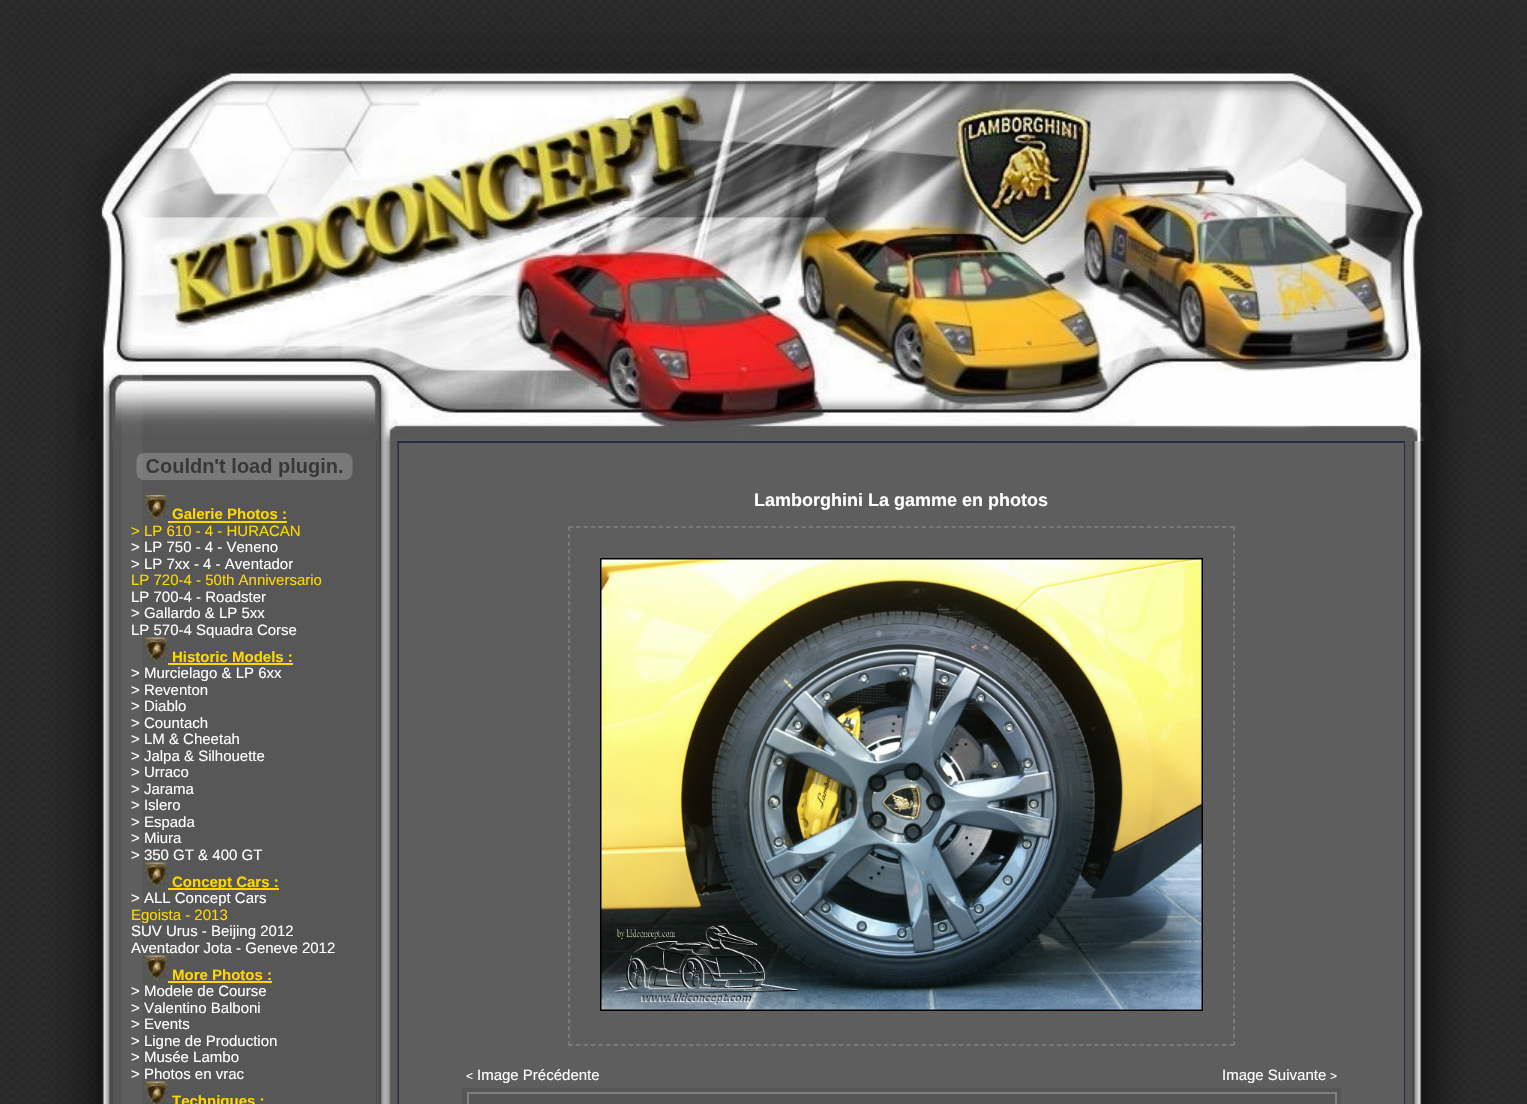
void draw(SkCanvas* canvas) {
    SkPaint paint;
    paint.setAntiAlias(true);
    canvas->clear(0xFFFFFFFF);
    canvas->drawImageRect(SkImages::DeferredFromEncodedData(SkData::MakeFromFileName("img1.png")), SkRect::MakeXYWH(0, 0, 1527, 1104), SkSamplingOptions());
    canvas->drawImageRect(SkImages::DeferredFromEncodedData(SkData::MakeFromFileName("img2.png")), SkRect::MakeXYWH(14, 12, 1499, 429), SkSamplingOptions());
    canvas->drawImageRect(SkImages::DeferredFromEncodedData(SkData::MakeFromFileName("img3.png")), SkRect::MakeXYWH(48, 441, 65, 663), SkSamplingOptions());
    canvas->drawImageRect(SkImages::DeferredFromEncodedData(SkData::MakeFromFileName("img4.png")), SkRect::MakeXYWH(112, 441, 265, 663), SkSamplingOptions());
    canvas->drawImageRect(SkImages::DeferredFromEncodedData(SkData::MakeFromFileName("img5.png")), SkRect::MakeXYWH(136, 453, 217, 27), SkSamplingOptions());
    canvas->drawImageRect(SkImages::DeferredFromEncodedData(SkData::MakeFromFileName("img6.png")), SkRect::MakeXYWH(145, 495, 23, 24), SkSamplingOptions());
    SkFont font1(fontMgr->matchFamilyStyle("Liberation Sans", SkFontStyle::Bold()), 15);
    font1.setSubpixel(true);
    paint.setColor(0xFFFFD700);
    canvas->drawString("Galerie Photos :", 172, 519, font1, paint);
    canvas->drawRect(SkRect::MakeXYWH(168, 521, 119, 2), paint);
    SkFont font2(fontMgr->matchFamilyStyle("Liberation Sans", SkFontStyle::Normal()), 15);
    font2.setSubpixel(true);
    canvas->drawString("> LP 610 - 4 - HURACAN", 131, 536, font2, paint);
    paint.setColor(0xFFFFFFFF);
    canvas->drawString("> LP 750 - 4 - Veneno", 131, 552, font2, paint);
    canvas->drawString("> LP 7xx - 4 - Aventador", 131, 569, font2, paint);
    paint.setColor(0xFFFFD700);
    canvas->drawString("LP 720-4 - 50th Anniversario", 131, 585, font2, paint);
    paint.setColor(0xFFFFFFFF);
    canvas->drawString("LP 700-4 - Roadster", 131, 602, font2, paint);
    canvas->drawString("> Gallardo & LP 5xx", 131, 618, font2, paint);
    canvas->drawString("LP 570-4 Squadra Corse", 131, 635, font2, paint);
    canvas->drawImageRect(SkImages::DeferredFromEncodedData(SkData::MakeFromFileName("img7.png")), SkRect::MakeXYWH(145, 637, 23, 25), SkSamplingOptions());
    paint.setColor(0xFFFFD700);
    canvas->drawString("Historic Models :", 172, 662, font1, paint);
    canvas->drawRect(SkRect::MakeXYWH(168, 663, 125, 2), paint);
    paint.setColor(0xFFFFFFFF);
    canvas->drawString("> Murcielago & LP 6xx", 131, 678, font2, paint);
    canvas->drawString("> Reventon", 131, 695, font2, paint);
    canvas->drawString("> Diablo", 131, 711, font2, paint);
    canvas->drawString("> Countach", 131, 728, font2, paint);
    canvas->drawString("> LM & Cheetah", 131, 744, font2, paint);
    canvas->drawString("> Jalpa & Silhouette", 131, 761, font2, paint);
    canvas->drawString("> Urraco", 131, 777, font2, paint);
    canvas->drawString("> Jarama", 131, 794, font2, paint);
    canvas->drawString("> Islero", 131, 810, font2, paint);
    canvas->drawString("> Espada", 131, 827, font2, paint);
    canvas->drawString("> Miura", 131, 843, font2, paint);
    canvas->drawString("> 350 GT & 400 GT", 131, 860, font2, paint);
    canvas->drawImageRect(SkImages::DeferredFromEncodedData(SkData::MakeFromFileName("img7.png")), SkRect::MakeXYWH(145, 862, 23, 25), SkSamplingOptions());
    paint.setColor(0xFFFFD700);
    canvas->drawRect(SkRect::MakeXYWH(168, 888, 111, 2), paint);
    canvas->drawString("Concept Cars :", 172, 887, font1, paint);
    paint.setColor(0xFFFFFFFF);
    canvas->drawString("> ALL Concept Cars", 131, 903, font2, paint);
    paint.setColor(0xFFFFD700);
    canvas->drawString("Egoista - 2013", 131, 920, font2, paint);
    paint.setColor(0xFFFFFFFF);
    canvas->drawString("SUV Urus - Beijing 2012", 131, 936, font2, paint);
    canvas->drawString("Aventador Jota - Geneve 2012", 131, 953, font2, paint);
    canvas->drawImageRect(SkImages::DeferredFromEncodedData(SkData::MakeFromFileName("img7.png")), SkRect::MakeXYWH(145, 955, 23, 25), SkSamplingOptions());
    paint.setColor(0xFFFFD700);
    canvas->drawString("More Photos :", 172, 980, font1, paint);
    canvas->drawRect(SkRect::MakeXYWH(168, 981, 104, 2), paint);
    paint.setColor(0xFFFFFFFF);
    canvas->drawString("> Modele de Course", 131, 996, font2, paint);
    canvas->drawString("> Valentino Balboni", 131, 1013, font2, paint);
    canvas->drawString("> Events", 131, 1029, font2, paint);
    canvas->drawString("> Ligne de Production", 131, 1046, font2, paint);
    canvas->drawString("> Musée Lambo", 131, 1062, font2, paint);
    canvas->drawString("> Photos en vrac", 131, 1079, font2, paint);
    canvas->drawImageRect(SkImages::DeferredFromEncodedData(SkData::MakeFromFileName("img8.png")), SkRect::MakeXYWH(145, 1081, 23, 23), SkSamplingOptions());
    paint.setColor(0xFFFFD700);
    canvas->drawString("Techniques :", 172, 1106, font1, paint);
    canvas->drawImageRect(SkImages::DeferredFromEncodedData(SkData::MakeFromFileName("img9.png")), SkRect::MakeXYWH(376, 441, 22, 663), SkSamplingOptions());
    paint.setColor(0xFF232D46);
    canvas->drawRect(SkRect::MakeXYWH(398, 441, 1007, 663), paint);
    paint.setColor(0xFF5E5E5E);
    canvas->drawRect(SkRect::MakeXYWH(399, 443, 1005, 661), paint);
    SkFont font3(fontMgr->matchFamilyStyle("Liberation Sans", SkFontStyle::Bold()), 18);
    font3.setSubpixel(true);
    paint.setColor(0xFFFFFFFF);
    canvas->drawString("Lamborghini La gamme en photos", 754, 506, font3, paint);
    paint.setStyle(SkPaint::kStroke_Style);
    paint.setStrokeWidth(1.5f);
    paint.setColor(0xFF808080);
    paint.setPathEffect(SkDashPathEffect::Make({{4.5f, 3.01f}}, 0));
    canvas->drawPath(SkPathBuilder().moveTo(568.5f, 527).lineTo(1234.5f, 527).detach(), paint);
    paint.setPathEffect(nullptr);
    paint.setPathEffect(SkDashPathEffect::Make({{4.5f, 2.96f}}, 0));
    canvas->drawPath(SkPathBuilder().moveTo(1234, 526.5f).lineTo(1234, 1045.5f).detach(), paint);
    paint.setPathEffect(nullptr);
    paint.setPathEffect(SkDashPathEffect::Make({{4.5f, 3.01f}}, 0));
    canvas->drawPath(SkPathBuilder().moveTo(568.5f, 1045).lineTo(1234.5f, 1045).detach(), paint);
    paint.setPathEffect(nullptr);
    paint.setPathEffect(SkDashPathEffect::Make({{4.5f, 2.96f}}, 0));
    canvas->drawPath(SkPathBuilder().moveTo(569, 526.5f).lineTo(569, 1045.5f).detach(), paint);
    paint.setPathEffect(nullptr);
    paint.setStrokeWidth(2);
    paint.setColor(0xFF000000);
    canvas->drawRect(SkRect::MakeXYWH(601, 559, 601, 451), paint);
    canvas->drawImageRect(SkImages::DeferredFromEncodedData(SkData::MakeFromFileName("img10.png")), SkRect::MakeXYWH(601, 559, 601, 451), SkSamplingOptions());
    SkFont font4(fontMgr->matchFamilyStyle("Liberation Sans", SkFontStyle::Normal()), 12);
    font4.setSubpixel(true);
    paint.setStyle(SkPaint::kFill_Style);
    paint.setColor(0xFFFFFFFF);
    canvas->drawString("<", 466, 1080, font4, paint);
    canvas->drawString("Image Précédente", 477, 1080, font2, paint);
    canvas->drawString("Image Suivante", 1222, 1080, font2, paint);
    canvas->drawString(">", 1330, 1080, font4, paint);
    paint.setColor(0xFF565656);
    canvas->drawRect(SkRect::MakeXYWH(462, 1088, 879, 16), paint);
    paint.setStyle(SkPaint::kStroke_Style);
    paint.setColor(0xFF808080);
    canvas->drawRect(SkRect::MakeXYWH(468, 1093, 868, 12), paint);
    paint.setStyle(SkPaint::kFill_Style);
    paint.setColor(0xFF575757);
    canvas->drawRect(SkRect::MakeXYWH(1405, 441, 7, 663), paint);
    canvas->drawImageRect(SkImages::DeferredFromEncodedData(SkData::MakeFromFileName("img11.png")), SkRect::MakeXYWH(1412, 441, 62, 663), SkSamplingOptions());
}
